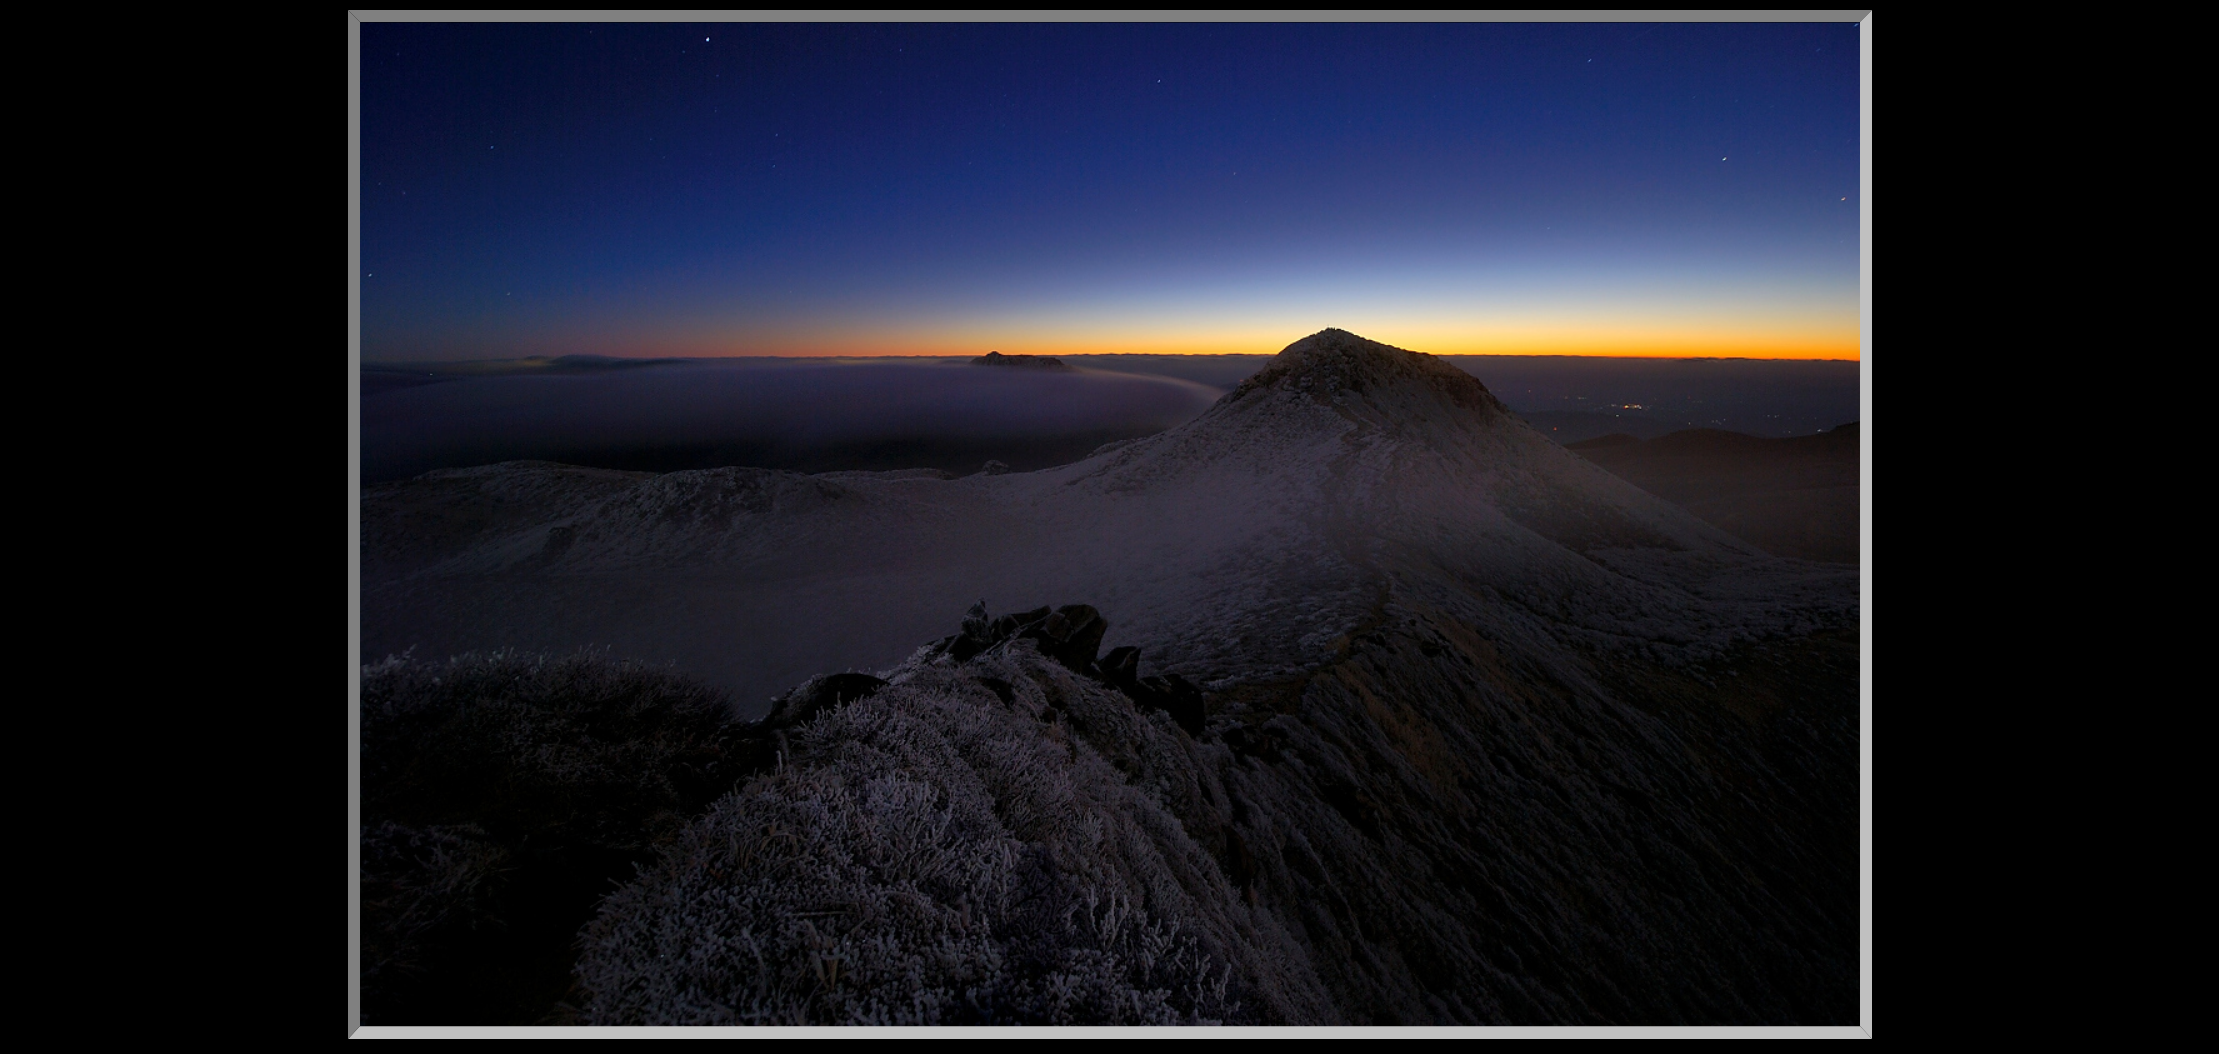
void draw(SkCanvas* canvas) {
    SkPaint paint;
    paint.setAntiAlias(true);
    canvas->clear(0xFF000000);
    paint.setColor(0xFF808080);
    canvas->drawPath(SkPathBuilder().moveTo(348, 10).lineTo(1872, 10).lineTo(1860, 22).lineTo(360, 22).close().detach(), paint);
    paint.setColor(0xFFC0C0C0);
    canvas->drawPath(SkPathBuilder().moveTo(1872, 10).lineTo(1872, 1039).lineTo(1860, 1026).lineTo(1860, 22).close().detach(), paint);
    canvas->drawPath(SkPathBuilder().moveTo(1872, 1039).lineTo(348, 1039).lineTo(360, 1026).lineTo(1860, 1026).close().detach(), paint);
    paint.setColor(0xFF808080);
    canvas->drawPath(SkPathBuilder().moveTo(348, 1039).lineTo(348, 10).lineTo(360, 22).lineTo(360, 1026).close().detach(), paint);
    canvas->drawImageRect(SkImages::DeferredFromEncodedData(SkData::MakeFromFileName("img1.png")), SkRect::MakeXYWH(360, 22, 1500, 1005), SkSamplingOptions());
}
